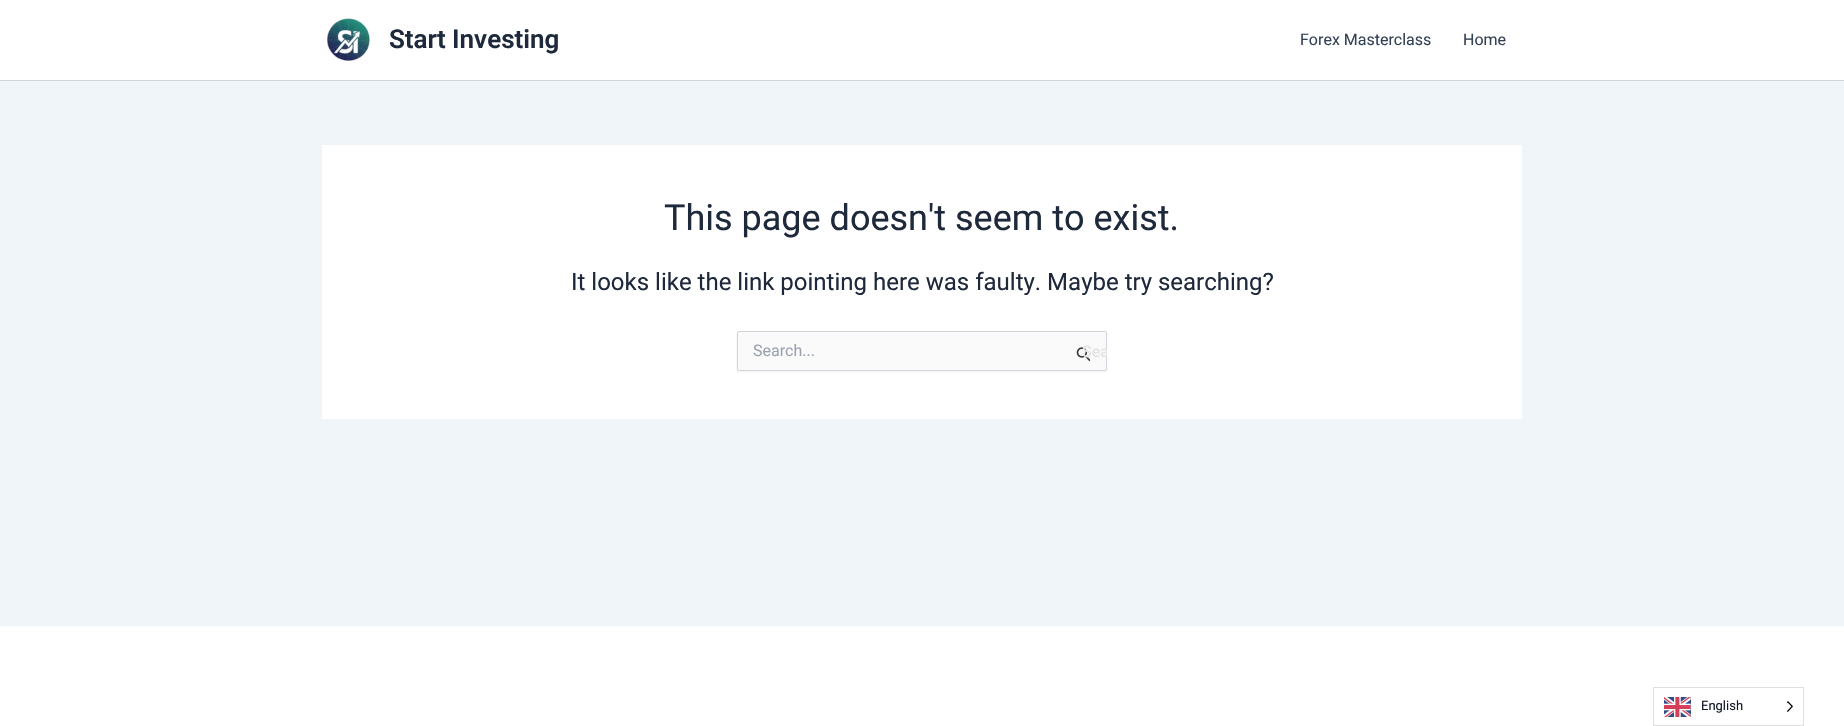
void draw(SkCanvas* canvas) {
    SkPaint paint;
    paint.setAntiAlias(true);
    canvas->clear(0xFFF0F5FA);
    paint.setColor(0xFFFFFFFF);
    canvas->drawRect(SkRect::MakeXYWH(0, 0, 1844, 80), paint);
    paint.setColor(0xFFD1D5DB);
    canvas->drawRect(SkRect::MakeXYWH(0, 80, 1844, 1), paint);
    canvas->drawImageRect(SkImages::DeferredFromEncodedData(SkData::MakeFromFileName("img1.png")), SkRect::MakeXYWH(327, 18, 43, 43), SkSamplingOptions());
    SkFont font1(fontMgr->matchFamilyStyle("Roboto", SkFontStyle(600, SkFontStyle::kNormal_Width, SkFontStyle::kUpright_Slant)), 26);
    font1.setSubpixel(true);
    paint.setColor(0xFF1E293B);
    canvas->drawString("Start Investing", 389, 48, font1, paint);
    SkFont font2(fontMgr->matchFamilyStyle("Roboto", SkFontStyle::Normal()), 16);
    font2.setSubpixel(true);
    paint.setColor(0xFF334155);
    canvas->drawString("Forex Masterclass", 1300, 45, font2, paint);
    canvas->drawString("Home", 1463, 45, font2, paint);
    paint.setColor(0xFFFFFFFF);
    canvas->drawRect(SkRect::MakeXYWH(322, 145, 1200, 274), paint);
    SkFont font3(fontMgr->matchFamilyStyle("Roboto", SkFontStyle::Normal()), 36);
    font3.setSubpixel(true);
    paint.setColor(0xFF1E293B);
    canvas->drawString("This page doesn't seem to exist.", 664, 230, font3, paint);
    SkFont font4(fontMgr->matchFamilyStyle("Roboto", SkFontStyle::Normal()), 24);
    font4.setSubpixel(true);
    canvas->drawString("It looks like the link pointing here was faulty. Maybe try searching?", 571, 290, font4, paint);
    paint.setColor(0x0D000000);
    paint.setMaskFilter(SkMaskFilter::MakeBlur(kNormal_SkBlurStyle, 1));
    canvas->drawRoundRect(SkRect::MakeXYWH(737, 332, 370, 40), 2, 2, paint);
    paint.setMaskFilter(nullptr);
    paint.setColor(0xFFFAFAFA);
    canvas->drawRoundRect(SkRect::MakeXYWH(737.5f, 331.5f, 369, 39), 1.5f, 1.5f, paint);
    paint.setStyle(SkPaint::kStroke_Style);
    paint.setStrokeWidth(1);
    paint.setColor(0xFFD1D5DB);
    canvas->drawRoundRect(SkRect::MakeXYWH(737.5f, 331.5f, 369, 39), 1.5f, 1.5f, paint);
    paint.setStyle(SkPaint::kFill_Style);
    paint.setColor(0xFF9CA3AF);
    canvas->drawString("Search...", 753, 356, font2, paint);
    canvas->drawImageRect(SkImages::DeferredFromEncodedData(SkData::MakeFromFileName("img2.png")), SkRect::MakeXYWH(1076, 347, 14, 15), SkSamplingOptions());
    canvas->save();
    canvas->clipPath(SkPathBuilder().moveTo(1064, 331).lineTo(1105, 331).cubicTo(1106, 331, 1107, 332, 1107, 333).lineTo(1107, 371).cubicTo(1107, 372, 1106, 373, 1105, 373).lineTo(1064, 373).cubicTo(1063, 373, 1062, 372, 1062, 371).lineTo(1062, 333).cubicTo(1062, 332, 1063, 331, 1064, 331).close().detach(), true);
    SkFont font5(fontMgr->matchFamilyStyle("Roboto", SkFontStyle(500, SkFontStyle::kNormal_Width, SkFontStyle::kUpright_Slant)), 16);
    font5.setSubpixel(true);
    paint.setColor(0xFFE5E5E6);
    canvas->drawString("Sea", 1082, 357, font5, paint);
    canvas->restore();
    paint.setColor(0xFFFFFFFF);
    canvas->drawRect(SkRect::MakeXYWH(0, 626, 1844, 100), paint);
    paint.setStyle(SkPaint::kStroke_Style);
    paint.setColor(0xFFE0E0E0);
    canvas->drawRect(SkRect::MakeXYWH(1653.5f, 687.5f, 150, 38), paint);
    canvas->drawImageRect(SkImages::DeferredFromEncodedData(SkData::MakeFromFileName("img3.png")), SkRect::MakeXYWH(1664, 697, 27, 20), SkSamplingOptions());
    SkFont font6(fontMgr->matchFamilyStyle("Roboto", SkFontStyle::Normal()), 13);
    font6.setSubpixel(true);
    paint.setStyle(SkPaint::kFill_Style);
    paint.setColor(0xFF111827);
    canvas->drawString("English", 1701, 710, font6, paint);
    canvas->drawImageRect(SkImages::DeferredFromEncodedData(SkData::MakeFromFileName("img4.png")), SkRect::MakeXYWH(1787, 701, 6, 11), SkSamplingOptions());
}
